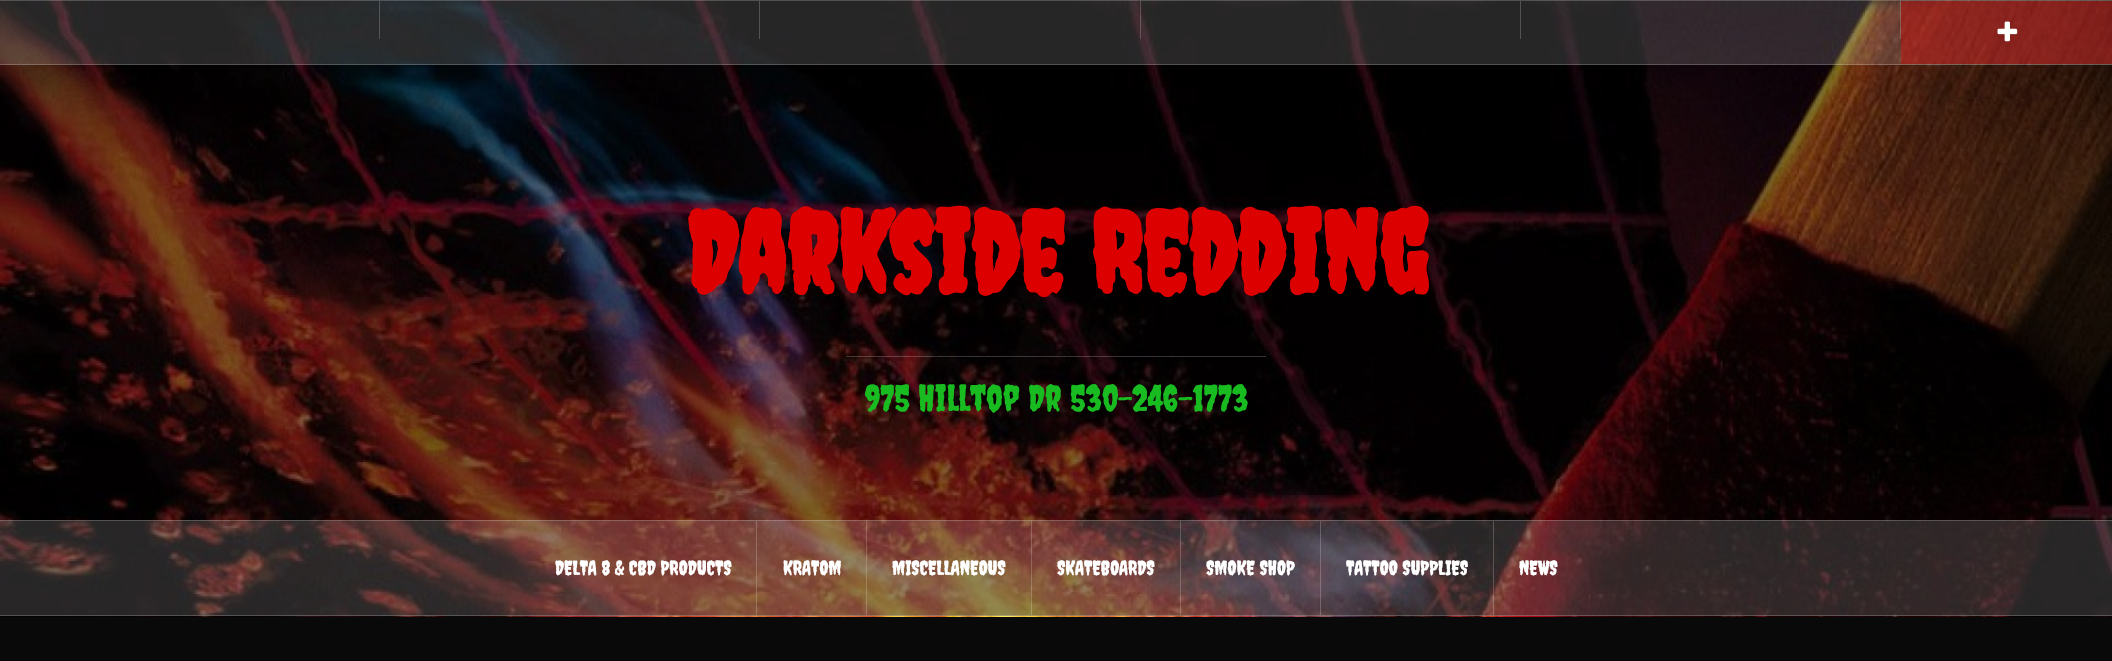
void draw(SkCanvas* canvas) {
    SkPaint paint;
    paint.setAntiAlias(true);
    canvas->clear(0xFF0A090A);
    canvas->drawImageRect(SkImages::DeferredFromEncodedData(SkData::MakeFromFileName("img1.png")), SkRect::MakeXYWH(0, 0, 2112, 617), SkSamplingOptions());
    paint.setColor(0x26FFFFFF);
    canvas->drawRect(SkRect::MakeXYWH(0, 0, 2112, 65), paint);
    paint.setColor(0x33FFFFFF);
    canvas->drawRect(SkRect::MakeXYWH(0, 0, 2112, 1), paint);
    canvas->drawRect(SkRect::MakeXYWH(0, 64, 2112, 1), paint);
    canvas->drawRect(SkRect::MakeXYWH(379, 1, 1, 38), paint);
    paint.setColor(0xFF525252);
    canvas->drawRect(SkRect::MakeXYWH(759, 1, 1, 38), paint);
    paint.setColor(0x33FFFFFF);
    canvas->drawRect(SkRect::MakeXYWH(1140, 1, 1, 38), paint);
    paint.setColor(0xFF525252);
    canvas->drawRect(SkRect::MakeXYWH(1520, 1, 1, 38), paint);
    paint.setColor(0x33FFFFFF);
    canvas->drawRect(SkRect::MakeXYWH(1900, 1, 1, 38), paint);
    paint.setColor(0x66DD0000);
    canvas->drawRect(SkRect::MakeXYWH(1901, 1, 211, 63), paint);
    canvas->drawImageRect(SkImages::DeferredFromEncodedData(SkData::MakeFromFileName("img2.png")), SkRect::MakeXYWH(1997, 21, 21, 21), SkSamplingOptions());
    SkFont font1(fontMgr->matchFamilyStyle("Creepster", SkFontStyle::Bold()), 112.5f);
    font1.setSubpixel(true);
    paint.setColor(0xFFDD0000);
    canvas->drawString("Darkside Redding", 686, 293, font1, paint);
    paint.setColor(0x33FFFFFF);
    canvas->drawRect(SkRect::MakeXYWH(846, 356, 420, 1), paint);
    SkFont font2(fontMgr->matchFamilyStyle("Creepster", SkFontStyle::Normal()), 36.25f);
    font2.setSubpixel(true);
    paint.setColor(0xFF18BC20);
    canvas->drawString("975 Hilltop Dr 530-246-1773", 864, 411, font2, paint);
    paint.setColor(0x26FFFFFF);
    canvas->drawRect(SkRect::MakeXYWH(0, 520, 2112, 96), paint);
    paint.setColor(0x33FFFFFF);
    canvas->drawRect(SkRect::MakeXYWH(0, 520, 2112, 1), paint);
    canvas->drawRect(SkRect::MakeXYWH(0, 615, 2112, 1), paint);
    canvas->drawRect(SkRect::MakeXYWH(756, 521, 1, 94), paint);
    SkFont font3(fontMgr->matchFamilyStyle("Creepster", SkFontStyle::Normal()), 20);
    font3.setSubpixel(true);
    paint.setColor(0xFFFFFFFF);
    canvas->drawString("DELTA 8 & CBD PRODUCTS", 555, 575, font3, paint);
    paint.setColor(0x33FFFFFF);
    canvas->drawRect(SkRect::MakeXYWH(866, 521, 1, 94), paint);
    paint.setColor(0xFFFFFFFF);
    canvas->drawString("KRATOM", 783, 575, font3, paint);
    paint.setColor(0x33FFFFFF);
    canvas->drawRect(SkRect::MakeXYWH(1031, 521, 1, 94), paint);
    paint.setColor(0xFFFFFFFF);
    canvas->drawString("MISCELLANEOUS", 892, 575, font3, paint);
    paint.setColor(0x33FFFFFF);
    canvas->drawRect(SkRect::MakeXYWH(1180, 521, 1, 94), paint);
    paint.setColor(0xFFFFFFFF);
    canvas->drawString("SKATEBOARDS", 1057, 575, font3, paint);
    paint.setColor(0x33FFFFFF);
    canvas->drawRect(SkRect::MakeXYWH(1320, 521, 1, 94), paint);
    paint.setColor(0xFFFFFFFF);
    canvas->drawString("SMOKE SHOP", 1206, 575, font3, paint);
    paint.setColor(0x33FFFFFF);
    canvas->drawRect(SkRect::MakeXYWH(1493, 521, 1, 94), paint);
    paint.setColor(0xFFFFFFFF);
    canvas->drawString("TATTOO SUPPLIES", 1346, 575, font3, paint);
    canvas->drawString("NEWS", 1519, 575, font3, paint);
}
